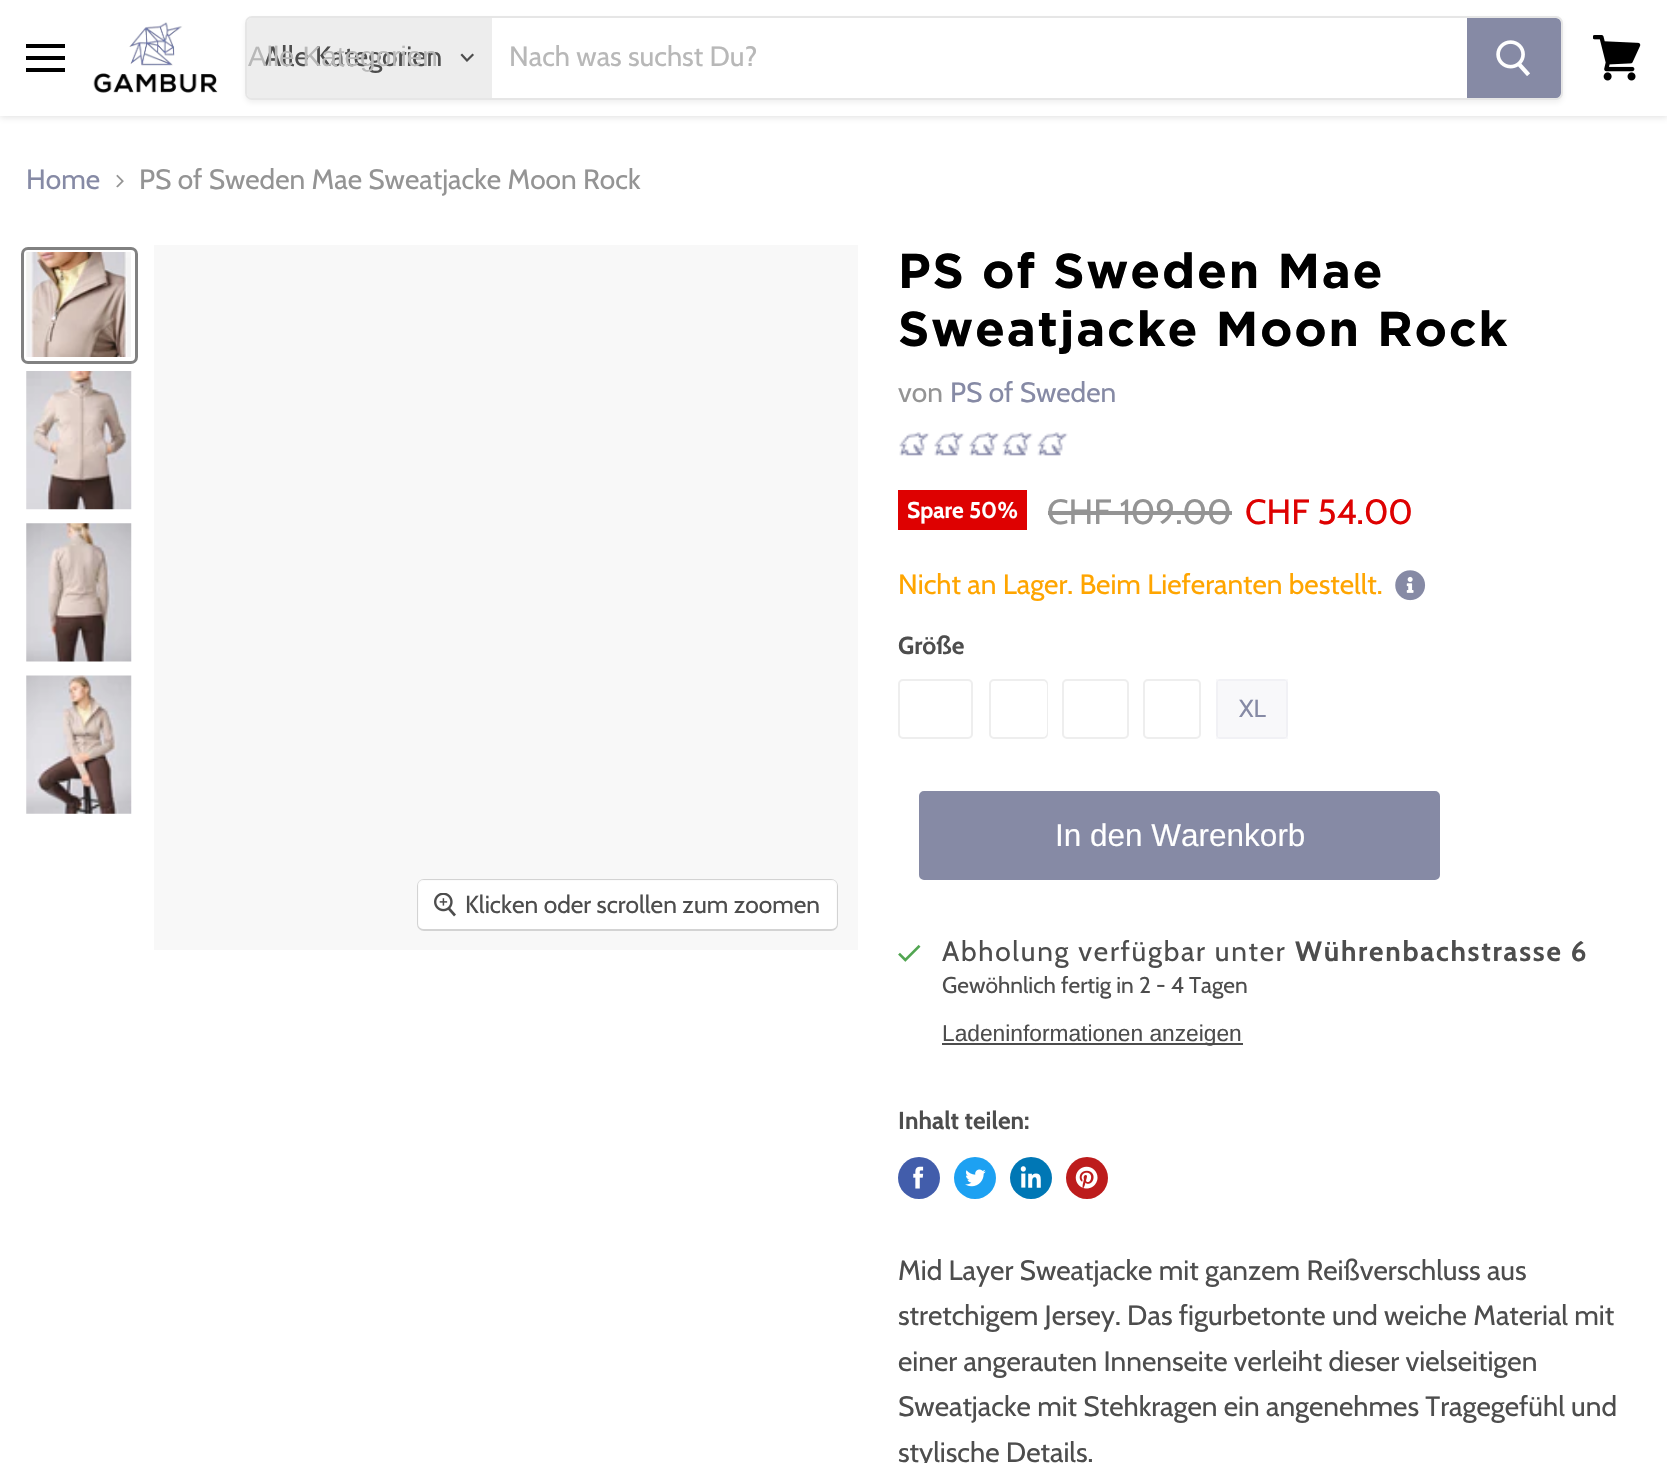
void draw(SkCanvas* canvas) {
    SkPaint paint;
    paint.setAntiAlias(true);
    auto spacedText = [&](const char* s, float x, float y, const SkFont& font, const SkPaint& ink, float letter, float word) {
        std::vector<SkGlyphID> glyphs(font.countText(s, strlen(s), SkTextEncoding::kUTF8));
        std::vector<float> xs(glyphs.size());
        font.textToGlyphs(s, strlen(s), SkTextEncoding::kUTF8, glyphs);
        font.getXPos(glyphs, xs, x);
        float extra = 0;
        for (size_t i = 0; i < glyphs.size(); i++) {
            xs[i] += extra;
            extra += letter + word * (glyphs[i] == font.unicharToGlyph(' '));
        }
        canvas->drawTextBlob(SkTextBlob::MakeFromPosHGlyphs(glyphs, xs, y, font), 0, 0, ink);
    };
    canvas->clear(0xFFFFFFFF);
    paint.setColor(0x40808080);
    paint.setMaskFilter(SkMaskFilter::MakeBlur(kNormal_SkBlurStyle, 3.5f));
    canvas->drawRect(SkRect::MakeXYWH(0, 2, 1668, 115), paint);
    paint.setMaskFilter(nullptr);
    paint.setColor(0xFFFFFFFF);
    canvas->drawRect(SkRect::MakeXYWH(0, 0, 1667, 116), paint);
    paint.setColor(0xFF000000);
    canvas->drawRect(SkRect::MakeXYWH(26, 44, 39, 4), paint);
    canvas->drawRect(SkRect::MakeXYWH(26, 56, 39, 4), paint);
    canvas->drawRect(SkRect::MakeXYWH(26, 68, 39, 4), paint);
    canvas->drawImageRect(SkImages::DeferredFromEncodedData(SkData::MakeFromFileName("img1.png")), SkRect::MakeXYWH(93, 22, 125, 71), SkSamplingOptions());
    canvas->save();
    canvas->clipPath(SkPathBuilder(SkPathFillType::kEvenOdd).moveTo(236, 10).lineTo(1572, 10).lineTo(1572, 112).lineTo(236, 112).close().moveTo(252, 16).lineTo(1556, 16).cubicTo(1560, 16, 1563, 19, 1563, 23).lineTo(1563, 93).cubicTo(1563, 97, 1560, 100, 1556, 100).lineTo(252, 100).cubicTo(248, 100, 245, 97, 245, 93).lineTo(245, 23).cubicTo(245, 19, 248, 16, 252, 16).close().detach(), true);
    paint.setColor(0x1C808080);
    paint.setMaskFilter(SkMaskFilter::MakeBlur(kNormal_SkBlurStyle, 2.5f));
    canvas->drawRoundRect(SkRect::MakeXYWH(245, 19, 1318, 84), 7, 7, paint);
    paint.setMaskFilter(nullptr);
    canvas->restore();
    paint.setStyle(SkPaint::kStroke_Style);
    paint.setStrokeWidth(2);
    paint.setColor(0x33808080);
    canvas->drawRoundRect(SkRect::MakeXYWH(246, 17, 1316, 82), 6, 6, paint);
    paint.setStyle(SkPaint::kFill_Style);
    paint.setColor(0xFFEDEDED);
    canvas->drawPath(SkPathBuilder().moveTo(252, 18).lineTo(492, 18).lineTo(492, 98).lineTo(252, 98).cubicTo(249, 98, 247, 96, 247, 93).lineTo(247, 23).cubicTo(247, 20, 249, 18, 252, 18).close().detach(), paint);
    SkFont font1(fontMgr->matchFamilyStyle("Cabin", SkFontStyle::Normal()), 28);
    font1.setSubpixel(true);
    paint.setColor(0xFF4D4D4D);
    canvas->drawString("Alle Kategorien", 264, 66, font1, paint);
    SkFont font2(fontMgr->matchFamilyStyle("Liberation Sans", SkFontStyle::Normal()), 28);
    font2.setSubpixel(true);
    paint.setColor(0xFFB8B8B8);
    canvas->drawString("Alle Kategorien", 248, 66, font2, paint);
    paint.setStyle(SkPaint::kStroke_Style);
    paint.setStrokeWidth(2.2f);
    paint.setStrokeCap(SkPaint::kSquare_Cap);
    paint.setColor(0xFF4D4D4D);
    canvas->drawPath(SkPathBuilder().moveTo(467, 60.5f).lineTo(472.5f, 55).moveTo(467, 60.5f).lineTo(462, 55).detach(), paint);
    paint.setStyle(SkPaint::kFill_Style);
    paint.setColor(0xFFB8B8B8);
    canvas->drawString("Nach was suchst Du?", 509, 66, font1, paint);
    paint.setColor(0xFF868AA5);
    canvas->drawPath(SkPathBuilder().moveTo(1468, 19).lineTo(1556, 19).cubicTo(1558, 19, 1560, 21, 1560, 23).lineTo(1560, 93).cubicTo(1560, 95, 1558, 97, 1556, 97).lineTo(1468, 97).close().detach(), paint);
    paint.setStyle(SkPaint::kStroke_Style);
    paint.setStrokeWidth(2);
    paint.setStrokeCap(SkPaint::kButt_Cap);
    canvas->drawPath(SkPathBuilder().moveTo(1468, 19).lineTo(1556, 19).cubicTo(1558, 19, 1560, 21, 1560, 23).lineTo(1560, 93).cubicTo(1560, 95, 1558, 97, 1556, 97).lineTo(1468, 97).close().detach(), paint);
    canvas->drawImageRect(SkImages::DeferredFromEncodedData(SkData::MakeFromFileName("img2.png")), SkRect::MakeXYWH(1496, 40, 34, 36), SkSamplingOptions());
    canvas->drawImageRect(SkImages::DeferredFromEncodedData(SkData::MakeFromFileName("img3.png")), SkRect::MakeXYWH(1593, 35, 48, 46), SkSamplingOptions());
    paint.setStyle(SkPaint::kFill_Style);
    canvas->drawString("Home", 26, 189, font1, paint);
    canvas->drawImageRect(SkImages::DeferredFromEncodedData(SkData::MakeFromFileName("img4.png")), SkRect::MakeXYWH(116, 174, 8, 14), SkSamplingOptions());
    paint.setColor(0xFF949494);
    canvas->drawString("PS of Sweden Mae Sweatjacke Moon Rock", 139, 189, font1, paint);
    paint.setStyle(SkPaint::kStroke_Style);
    paint.setStrokeWidth(3);
    paint.setColor(0xFF818181);
    canvas->drawRoundRect(SkRect::MakeXYWH(22.5f, 248.5f, 114, 114), 5.5f, 5.5f, paint);
    canvas->drawImageRect(SkImages::DeferredFromEncodedData(SkData::MakeFromFileName("img5.png")), SkRect::MakeXYWH(26, 252, 105, 105), SkSamplingOptions());
    canvas->drawImageRect(SkImages::DeferredFromEncodedData(SkData::MakeFromFileName("img6.png")), SkRect::MakeXYWH(26, 371, 106, 139), SkSamplingOptions());
    canvas->drawImageRect(SkImages::DeferredFromEncodedData(SkData::MakeFromFileName("img7.png")), SkRect::MakeXYWH(26, 523, 106, 139), SkSamplingOptions());
    canvas->drawImageRect(SkImages::DeferredFromEncodedData(SkData::MakeFromFileName("img8.png")), SkRect::MakeXYWH(26, 675, 106, 139), SkSamplingOptions());
    paint.setStyle(SkPaint::kFill_Style);
    paint.setColor(0xFFF8F8F8);
    canvas->drawRect(SkRect::MakeXYWH(154, 245, 704, 705), paint);
    paint.setStyle(SkPaint::kStroke_Style);
    paint.setStrokeWidth(2);
    paint.setColor(0xFFD3D3D3);
    canvas->drawRoundRect(SkRect::MakeXYWH(418, 880, 419, 50), 6, 6, paint);
    paint.setStyle(SkPaint::kFill_Style);
    paint.setColor(0xE6FFFFFF);
    canvas->drawRoundRect(SkRect::MakeXYWH(418, 880, 419, 49), 5, 5, paint);
    canvas->drawImageRect(SkImages::DeferredFromEncodedData(SkData::MakeFromFileName("img9.png")), SkRect::MakeXYWH(434, 893, 22, 24), SkSamplingOptions());
    SkFont font3(fontMgr->matchFamilyStyle("Cabin", SkFontStyle::Normal()), 24.5f);
    font3.setSubpixel(true);
    paint.setColor(0xFF4D4D4D);
    canvas->drawString("Klicken oder scrollen zum zoomen", 465, 913, font3, paint);
    SkFont font4(fontMgr->matchFamilyStyle("Gotham", SkFontStyle::Bold()), 49);
    font4.setSubpixel(true);
    paint.setColor(0xFF000000);
    spacedText("PS of Sweden Mae", 898, 288, font4, paint, 1.75f, 0);
    spacedText("Sweatjacke Moon Rock", 898, 346, font4, paint, 1.75f, 0);
    paint.setColor(0xFF949494);
    canvas->drawString("von", 898, 402, font1, paint);
    paint.setColor(0xFF868AA5);
    canvas->drawString("PS of Sweden", 950, 402, font1, paint);
    canvas->drawImageRect(SkImages::DeferredFromEncodedData(SkData::MakeFromFileName("img10.png")), SkRect::MakeXYWH(899, 432, 31, 24), SkSamplingOptions());
    canvas->drawImageRect(SkImages::DeferredFromEncodedData(SkData::MakeFromFileName("img11.png")), SkRect::MakeXYWH(934, 432, 31, 24), SkSamplingOptions());
    canvas->drawImageRect(SkImages::DeferredFromEncodedData(SkData::MakeFromFileName("img11.png")), SkRect::MakeXYWH(969, 432, 31, 24), SkSamplingOptions());
    canvas->drawImageRect(SkImages::DeferredFromEncodedData(SkData::MakeFromFileName("img12.png")), SkRect::MakeXYWH(1002, 432, 31, 24), SkSamplingOptions());
    canvas->drawImageRect(SkImages::DeferredFromEncodedData(SkData::MakeFromFileName("img13.png")), SkRect::MakeXYWH(1037, 432, 31, 24), SkSamplingOptions());
    paint.setColor(0xFFDE0101);
    canvas->drawRect(SkRect::MakeXYWH(898, 490, 129, 40), paint);
    SkFont font5(fontMgr->matchFamilyStyle("Cabin", SkFontStyle::Bold()), 22.75f);
    font5.setSubpixel(true);
    paint.setColor(0xFFFFFFFF);
    canvas->drawString("Spare 50%", 907, 518, font5, paint);
    SkFont font6(fontMgr->matchFamilyStyle("Cabin", SkFontStyle::Normal()), 35);
    font6.setSubpixel(true);
    paint.setColor(0xFF949494);
    canvas->drawString("CHF 109.00", 1047, 524, font6, paint);
    canvas->drawRect(SkRect::MakeXYWH(1048, 511, 184, 4), paint);
    paint.setColor(0xFFDE0101);
    canvas->drawString("CHF 54.00", 1245, 524, font6, paint);
    paint.setColor(0xFFFFA500);
    canvas->drawString("Nicht an Lager. Beim Lieferanten bestellt.", 898, 594, font1, paint);
    canvas->drawImageRect(SkImages::DeferredFromEncodedData(SkData::MakeFromFileName("img14.png")), SkRect::MakeXYWH(1395, 570, 31, 31), SkSamplingOptions());
    SkFont font7(fontMgr->matchFamilyStyle("Cabin", SkFontStyle::Bold()), 24.5f);
    font7.setSubpixel(true);
    paint.setColor(0xFF4D4D4D);
    canvas->drawString("Größe", 898, 654, font7, paint);
    paint.setStyle(SkPaint::kStroke_Style);
    paint.setColor(0xFFEEEEEE);
    canvas->drawRoundRect(SkRect::MakeXYWH(899, 680, 73, 58), 4, 4, paint);
    canvas->drawRoundRect(SkRect::MakeXYWH(990, 680, 57, 58), 4, 4, paint);
    canvas->save();
    canvas->clipPath(SkPathBuilder().moveTo(995, 681).lineTo(1043, 681).cubicTo(1045, 681, 1047, 683, 1047, 685).lineTo(1047, 733).cubicTo(1047, 735, 1045, 737, 1043, 737).lineTo(995, 737).cubicTo(993, 737, 991, 735, 991, 733).lineTo(991, 685).cubicTo(991, 683, 993, 681, 995, 681).close().detach(), true);
    paint.setStyle(SkPaint::kFill_Style);
    paint.setColor(0xFFFFFFFF);
    canvas->drawRoundRect(SkRect::MakeXYWH(961, 653, 114, 112), 56, 56, paint);
    canvas->restore();
    paint.setStyle(SkPaint::kStroke_Style);
    paint.setColor(0xFFEEEEEE);
    canvas->drawRoundRect(SkRect::MakeXYWH(1063, 680, 65, 58), 4, 4, paint);
    canvas->drawRoundRect(SkRect::MakeXYWH(1144, 680, 56, 58), 4, 4, paint);
    paint.setStyle(SkPaint::kFill_Style);
    paint.setColor(0xFFF8F8FA);
    canvas->drawRoundRect(SkRect::MakeXYWH(1216, 679, 72, 60), 5, 5, paint);
    paint.setStyle(SkPaint::kStroke_Style);
    paint.setColor(0x0F868AA5);
    canvas->drawRect(SkRect::MakeXYWH(1217, 680, 70, 58), paint);
    paint.setStyle(SkPaint::kFill_Style);
    paint.setColor(0xFF868AA5);
    canvas->drawString("XL", 1239, 717, font3, paint);
    canvas->drawRoundRect(SkRect::MakeXYWH(920, 792, 519, 87), 4, 4, paint);
    paint.setStyle(SkPaint::kStroke_Style);
    canvas->drawRoundRect(SkRect::MakeXYWH(920, 792, 519, 87), 4, 4, paint);
    SkFont font8(fontMgr->matchFamilyStyle("Liberation Sans", SkFontStyle::Normal()), 31.5f);
    font8.setSubpixel(true);
    paint.setStyle(SkPaint::kFill_Style);
    paint.setColor(0xFFFFFFFF);
    canvas->drawString("In den Warenkorb", 1055, 846, font8, paint);
    canvas->drawImageRect(SkImages::DeferredFromEncodedData(SkData::MakeFromFileName("img15.png")), SkRect::MakeXYWH(898, 944, 23, 18), SkSamplingOptions());
    paint.setColor(0xFF4D4D4D);
    spacedText("Abholung verfügbar unter", 942, 961, font1, paint, 1.75f, 0);
    SkFont font9(fontMgr->matchFamilyStyle("Cabin", SkFontStyle::Bold()), 28);
    font9.setSubpixel(true);
    spacedText("Wührenbachstrasse 6", 1295, 961, font9, paint, 1.75f, 0);
    SkFont font10(fontMgr->matchFamilyStyle("Cabin", SkFontStyle::Normal()), 22.75f);
    font10.setSubpixel(true);
    canvas->drawString("Gewöhnlich fertig in 2 - 4 Tagen", 942, 993, font10, paint);
    canvas->drawRect(SkRect::MakeXYWH(942, 1043, 301, 2), paint);
    SkFont font11(fontMgr->matchFamilyStyle("Liberation Sans", SkFontStyle::Normal()), 22.75f);
    font11.setSubpixel(true);
    canvas->drawString("Ladeninformationen anzeigen", 942, 1041, font11, paint);
    canvas->drawString("Inhalt teilen:", 898, 1129, font7, paint);
    paint.setColor(0xFF425DAB);
    canvas->drawCircle(919, 1178, 21, paint);
    canvas->drawImageRect(SkImages::DeferredFromEncodedData(SkData::MakeFromFileName("img16.png")), SkRect::MakeXYWH(913, 1166, 11, 23), SkSamplingOptions());
    paint.setColor(0xFF1DA1F2);
    canvas->drawCircle(975, 1178, 21, paint);
    canvas->drawImageRect(SkImages::DeferredFromEncodedData(SkData::MakeFromFileName("img17.png")), SkRect::MakeXYWH(965, 1169, 21, 18), SkSamplingOptions());
    paint.setColor(0xFF0077B5);
    canvas->drawCircle(1031, 1178, 21, paint);
    canvas->drawImageRect(SkImages::DeferredFromEncodedData(SkData::MakeFromFileName("img18.png")), SkRect::MakeXYWH(1020, 1166, 21, 22), SkSamplingOptions());
    paint.setColor(0xFFBD1C1C);
    canvas->drawCircle(1087, 1178, 21, paint);
    canvas->drawImageRect(SkImages::DeferredFromEncodedData(SkData::MakeFromFileName("img19.png")), SkRect::MakeXYWH(1075, 1166, 23, 23), SkSamplingOptions());
    paint.setColor(0xFF4D4D4D);
    canvas->drawString("Mid Layer Sweatjacke mit ganzem Reißverschluss aus", 898, 1280, font1, paint);
    canvas->drawString("stretchigem Jersey. Das figurbetonte und weiche Material mit", 898, 1325, font1, paint);
    canvas->drawString("einer angerauten Innenseite verleiht dieser vielseitigen", 898, 1371, font1, paint);
    canvas->drawString("Sweatjacke mit Stehkragen ein angenehmes Tragegefühl und", 898, 1416, font1, paint);
    canvas->drawString("stylische Details.", 898, 1462, font1, paint);
}
